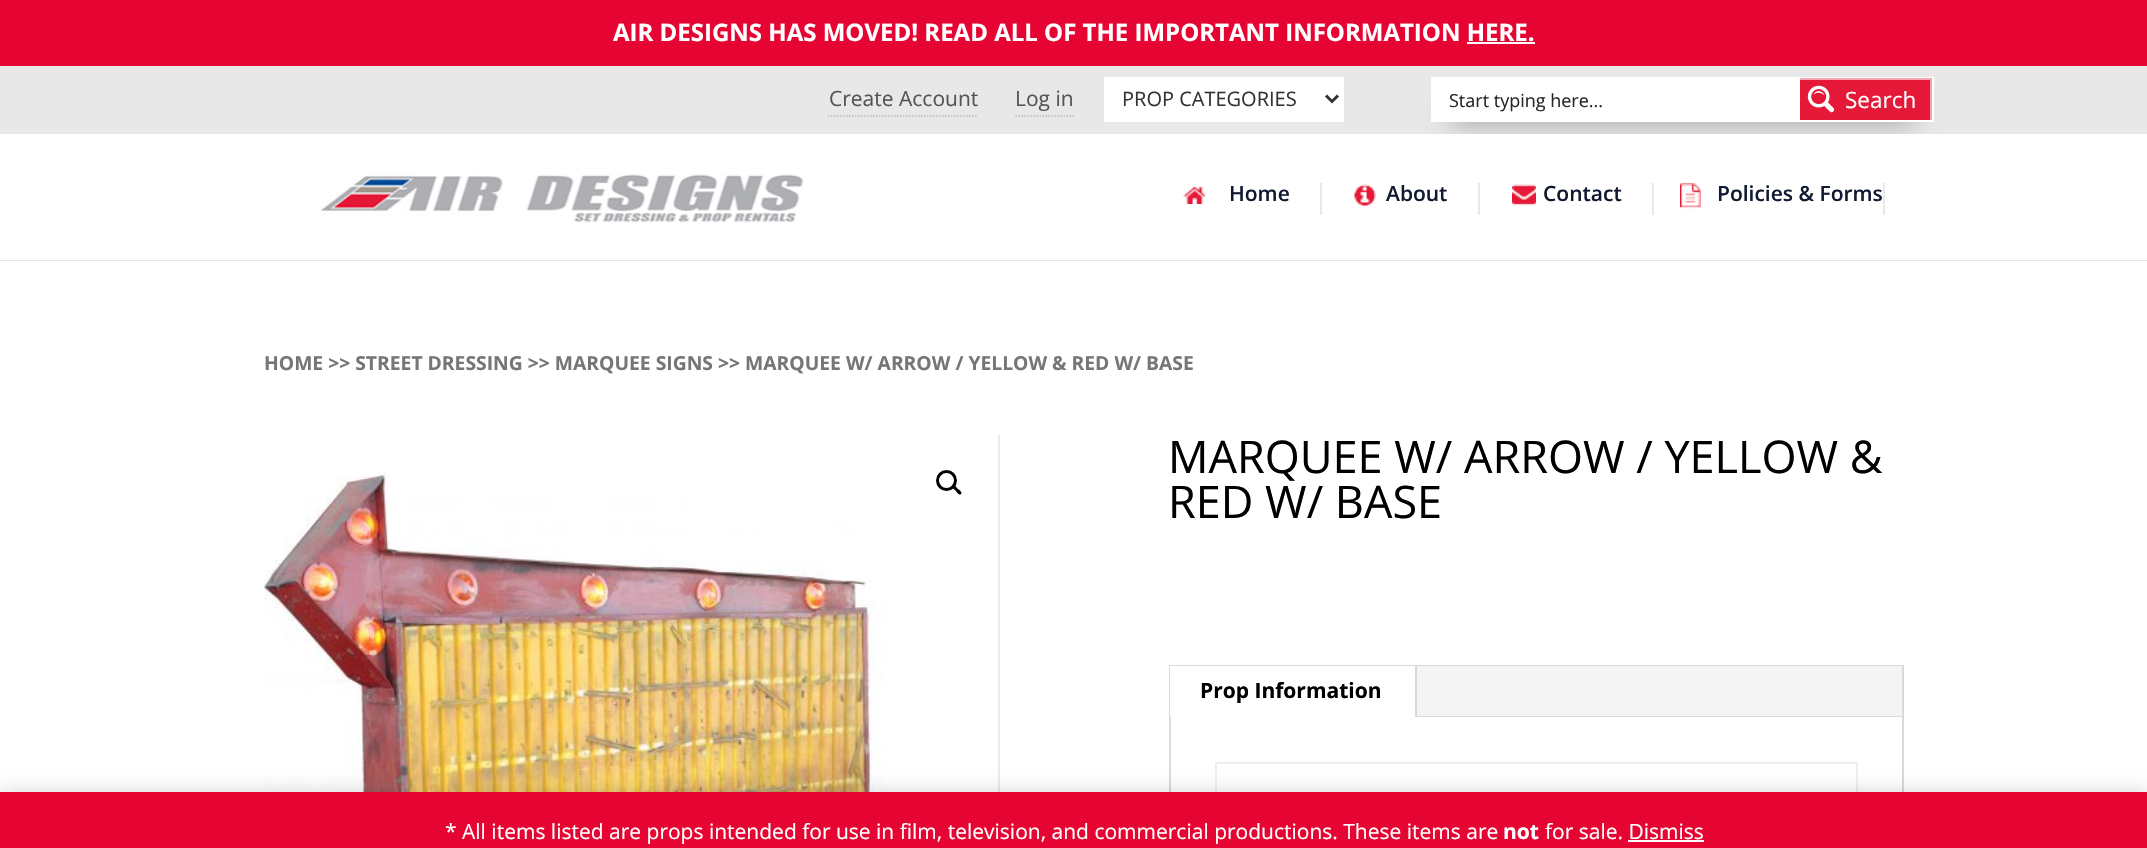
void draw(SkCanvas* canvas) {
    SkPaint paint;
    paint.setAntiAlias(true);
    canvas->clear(0xFFE60532);
    SkFont font1(fontMgr->matchFamilyStyle("Open Sans", SkFontStyle::Bold()), 24);
    font1.setSubpixel(true);
    paint.setColor(0xFFFFFFFF);
    canvas->drawString("AIR DESIGNS HAS MOVED! READ ALL OF THE IMPORTANT INFORMATION HERE.", 613, 41, font1, paint);
    canvas->drawRect(SkRect::MakeXYWH(1467, 42, 68, 2), paint);
    paint.setColor(0xFFE8E8E8);
    canvas->drawRect(SkRect::MakeXYWH(0, 66, 2147, 68), paint);
    SkFont font2(fontMgr->matchFamilyStyle("Open Sans", SkFontStyle::Normal()), 21);
    font2.setSubpixel(true);
    paint.setColor(0xFF555555);
    canvas->drawString("Create Account", 829, 106, font2, paint);
    paint.setStyle(SkPaint::kStroke_Style);
    paint.setStrokeWidth(1.5f);
    paint.setColor(0xFFBABABA);
    paint.setPathEffect(SkDashPathEffect::Make({{1.5f, 1.5f}}, 0));
    canvas->drawPath(SkPathBuilder().moveTo(828, 116).lineTo(978, 116).detach(), paint);
    paint.setPathEffect(nullptr);
    paint.setStyle(SkPaint::kFill_Style);
    paint.setColor(0xFF555555);
    canvas->drawString("Log in", 1015, 106, font2, paint);
    paint.setStyle(SkPaint::kStroke_Style);
    paint.setColor(0xFFBABABA);
    paint.setPathEffect(SkDashPathEffect::Make({{1.5f, 1.5f}}, 0));
    canvas->drawPath(SkPathBuilder().moveTo(1015.5f, 116).lineTo(1074, 116).detach(), paint);
    paint.setPathEffect(nullptr);
    paint.setStyle(SkPaint::kFill_Style);
    paint.setColor(0xFFFFFFFF);
    canvas->drawRect(SkRect::MakeXYWH(1104, 77, 240, 45), paint);
    paint.setStyle(SkPaint::kStroke_Style);
    paint.setStrokeWidth(3);
    paint.setColor(0xFF333333);
    canvas->drawPath(SkPathBuilder().moveTo(1326, 95.5f).lineTo(1332, 101.5f).lineTo(1338, 95.5f).detach(), paint);
    SkFont font3(fontMgr->matchFamilyStyle("Open Sans", SkFontStyle::Normal()), 20);
    font3.setSubpixel(true);
    paint.setStyle(SkPaint::kFill_Style);
    canvas->drawString("PROP CATEGORIES", 1122, 106, font3, paint);
    paint.setColor(0xFF000000);
    paint.setMaskFilter(SkMaskFilter::MakeBlur(kNormal_SkBlurStyle, 13.5f));
    canvas->drawRect(SkRect::MakeXYWH(1451, 111, 463, 6), paint);
    paint.setMaskFilter(nullptr);
    paint.setColor(0xFFFFFFFF);
    canvas->drawRect(SkRect::MakeXYWH(1431, 77, 503, 45), paint);
    SkFont font4(fontMgr->matchFamilyStyle("Open Sans", SkFontStyle::Normal()), 18);
    font4.setSubpixel(true);
    paint.setColor(0xFF262626);
    canvas->drawString("Start typing here...", 1449, 107, font4, paint);
    paint.setColor(0xFFE51837);
    canvas->drawRect(SkRect::MakeXYWH(1800, 80, 130, 40), paint);
    canvas->save();
    canvas->clipRect(SkRect::MakeXYWH(1800, 78, 132, 42));
    paint.setColor(0xFFF5A5B1);
    canvas->drawPath(SkPathBuilder(SkPathFillType::kEvenOdd).moveTo(1652, -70).lineTo(2080, -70).lineTo(2080, 268).lineTo(1652, 268).close().moveTo(1798, 80).lineTo(1930, 80).lineTo(1930, 122).lineTo(1798, 122).close().detach(), paint);
    canvas->restore();
    canvas->drawImageRect(SkImages::DeferredFromEncodedData(SkData::MakeFromFileName("img1.png")), SkRect::MakeXYWH(1807, 85, 28, 28), SkSamplingOptions());
    SkFont font5(fontMgr->matchFamilyStyle("Open Sans", SkFontStyle::Normal()), 22.5f);
    font5.setSubpixel(true);
    paint.setColor(0xFFFFFFFF);
    canvas->drawString("Search", 1845, 108, font5, paint);
    paint.setColor(0xFFE6E6E6);
    canvas->drawRect(SkRect::MakeXYWH(0, 260, 2147, 1), paint);
    paint.setColor(0xFFFFFFFF);
    canvas->drawRect(SkRect::MakeXYWH(0, 134, 2147, 126), paint);
    canvas->drawImageRect(SkImages::DeferredFromEncodedData(SkData::MakeFromFileName("img2.png")), SkRect::MakeXYWH(320, 174, 484, 49), SkSamplingOptions());
    canvas->drawImageRect(SkImages::DeferredFromEncodedData(SkData::MakeFromFileName("img3.png")), SkRect::MakeXYWH(1183, 186, 23, 18), SkSamplingOptions());
    paint.setColor(0xFFE8E8E8);
    canvas->drawRect(SkRect::MakeXYWH(1320, 183, 2, 32), paint);
    SkFont font6(fontMgr->matchFamilyStyle("Open Sans", SkFontStyle(600, SkFontStyle::kNormal_Width, SkFontStyle::kUpright_Slant)), 21);
    font6.setSubpixel(true);
    paint.setColor(0xFF101931);
    canvas->drawString("Home", 1229, 201, font6, paint);
    canvas->drawImageRect(SkImages::DeferredFromEncodedData(SkData::MakeFromFileName("img4.png")), SkRect::MakeXYWH(1354, 184, 22, 23), SkSamplingOptions());
    paint.setColor(0xFFE8E8E8);
    canvas->drawRect(SkRect::MakeXYWH(1478, 183, 2, 32), paint);
    paint.setColor(0xFF101931);
    canvas->drawString("About", 1386, 201, font6, paint);
    canvas->drawImageRect(SkImages::DeferredFromEncodedData(SkData::MakeFromFileName("img5.png")), SkRect::MakeXYWH(1512, 184, 24, 22), SkSamplingOptions());
    paint.setColor(0xFFE8E8E8);
    canvas->drawRect(SkRect::MakeXYWH(1652, 183, 2, 32), paint);
    paint.setColor(0xFF101931);
    canvas->drawString("Contact", 1543, 201, font6, paint);
    canvas->drawImageRect(SkImages::DeferredFromEncodedData(SkData::MakeFromFileName("img6.png")), SkRect::MakeXYWH(1680, 183, 21, 26), SkSamplingOptions());
    paint.setColor(0xFFE8E8E8);
    canvas->drawRect(SkRect::MakeXYWH(1883, 183, 2, 32), paint);
    paint.setColor(0xFF101931);
    canvas->drawString("Policies & Forms", 1717, 201, font6, paint);
    paint.setColor(0xFFFFFFFF);
    canvas->drawRect(SkRect::MakeXYWH(0, 261, 2147, 531), paint);
    SkFont font7(fontMgr->matchFamilyStyle("Open Sans", SkFontStyle::Bold()), 19.3f);
    font7.setSubpixel(true);
    paint.setColor(0xFF767676);
    canvas->drawString("HOME >> STREET DRESSING >> MARQUEE SIGNS >> MARQUEE W/ ARROW / YELLOW & RED W/ BASE", 264, 370, font7, paint);
    paint.setColor(0xFFEAEAEA);
    canvas->drawRect(SkRect::MakeXYWH(998, 435, 2, 357), paint);
    canvas->drawImageRect(SkImages::DeferredFromEncodedData(SkData::MakeFromFileName("img7.png")), SkRect::MakeXYWH(264, 471, 621, 321), SkSamplingOptions());
    paint.setStyle(SkPaint::kStroke_Style);
    paint.setColor(0xFF000000);
    canvas->drawCircle(946.5f, 480.5f, 9, paint);
    paint.setStyle(SkPaint::kFill_Style);
    canvas->drawPath(SkPathBuilder().moveTo(952.5f, 485.5f).cubicTo(954.5f, 484, 957, 488, 958, 489).cubicTo(959, 489.5f, 963, 492.5f, 961, 494).cubicTo(959.5f, 496, 956.5f, 492, 956, 491).cubicTo(955, 490, 951, 487.5f, 952.5f, 485.5f).close().detach(), paint);
    SkFont font8(fontMgr->matchFamilyStyle("Open Sans", SkFontStyle::Normal()), 45);
    font8.setSubpixel(true);
    canvas->drawString("MARQUEE W/ ARROW / YELLOW &", 1168, 473, font8, paint);
    canvas->drawString("RED W/ BASE", 1168, 518, font8, paint);
    paint.setStyle(SkPaint::kStroke_Style);
    paint.setStrokeWidth(2);
    paint.setColor(0xFFD9D9D9);
    canvas->drawRect(SkRect::MakeXYWH(1170, 666, 733, 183), paint);
    paint.setStyle(SkPaint::kFill_Style);
    paint.setColor(0xFFF4F4F4);
    canvas->drawRect(SkRect::MakeXYWH(1417, 666, 485, 50), paint);
    paint.setColor(0xFFFFFFFF);
    canvas->drawRect(SkRect::MakeXYWH(1170, 666, 245, 51), paint);
    paint.setColor(0xFFD9D9D9);
    canvas->drawRect(SkRect::MakeXYWH(1415, 666, 2, 51), paint);
    SkFont font9(fontMgr->matchFamilyStyle("Open Sans", SkFontStyle::Bold()), 21);
    font9.setSubpixel(true);
    paint.setColor(0xFF000000);
    canvas->drawString("Prop Information", 1200, 698, font9, paint);
    paint.setColor(0xFFD9D9D9);
    canvas->drawRect(SkRect::MakeXYWH(1417, 716, 485, 1), paint);
    paint.setColor(0xFFEEEEEE);
    canvas->drawRect(SkRect::MakeXYWH(1215, 762, 642, 2), paint);
    canvas->drawRect(SkRect::MakeXYWH(1856, 762, 2, 30), paint);
    canvas->drawRect(SkRect::MakeXYWH(1215, 762, 2, 30), paint);
    paint.setColor(0x33000000);
    paint.setMaskFilter(SkMaskFilter::MakeBlur(kNormal_SkBlurStyle, 10.5f));
    canvas->drawRect(SkRect::MakeXYWH(0, 794, 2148, 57), paint);
    paint.setMaskFilter(nullptr);
    paint.setColor(0xFFE60532);
    canvas->drawRect(SkRect::MakeXYWH(0, 792, 2147, 56), paint);
    paint.setColor(0xFFFFFFFF);
    canvas->drawString("* All items listed are props intended for use in film, television, and commercial productions. These items are", 445, 839, font2, paint);
    canvas->drawString("not", 1503, 839, font9, paint);
    canvas->drawString("for sale. Dismiss", 1545, 839, font2, paint);
    canvas->drawRect(SkRect::MakeXYWH(1628, 840, 76, 2), paint);
}
